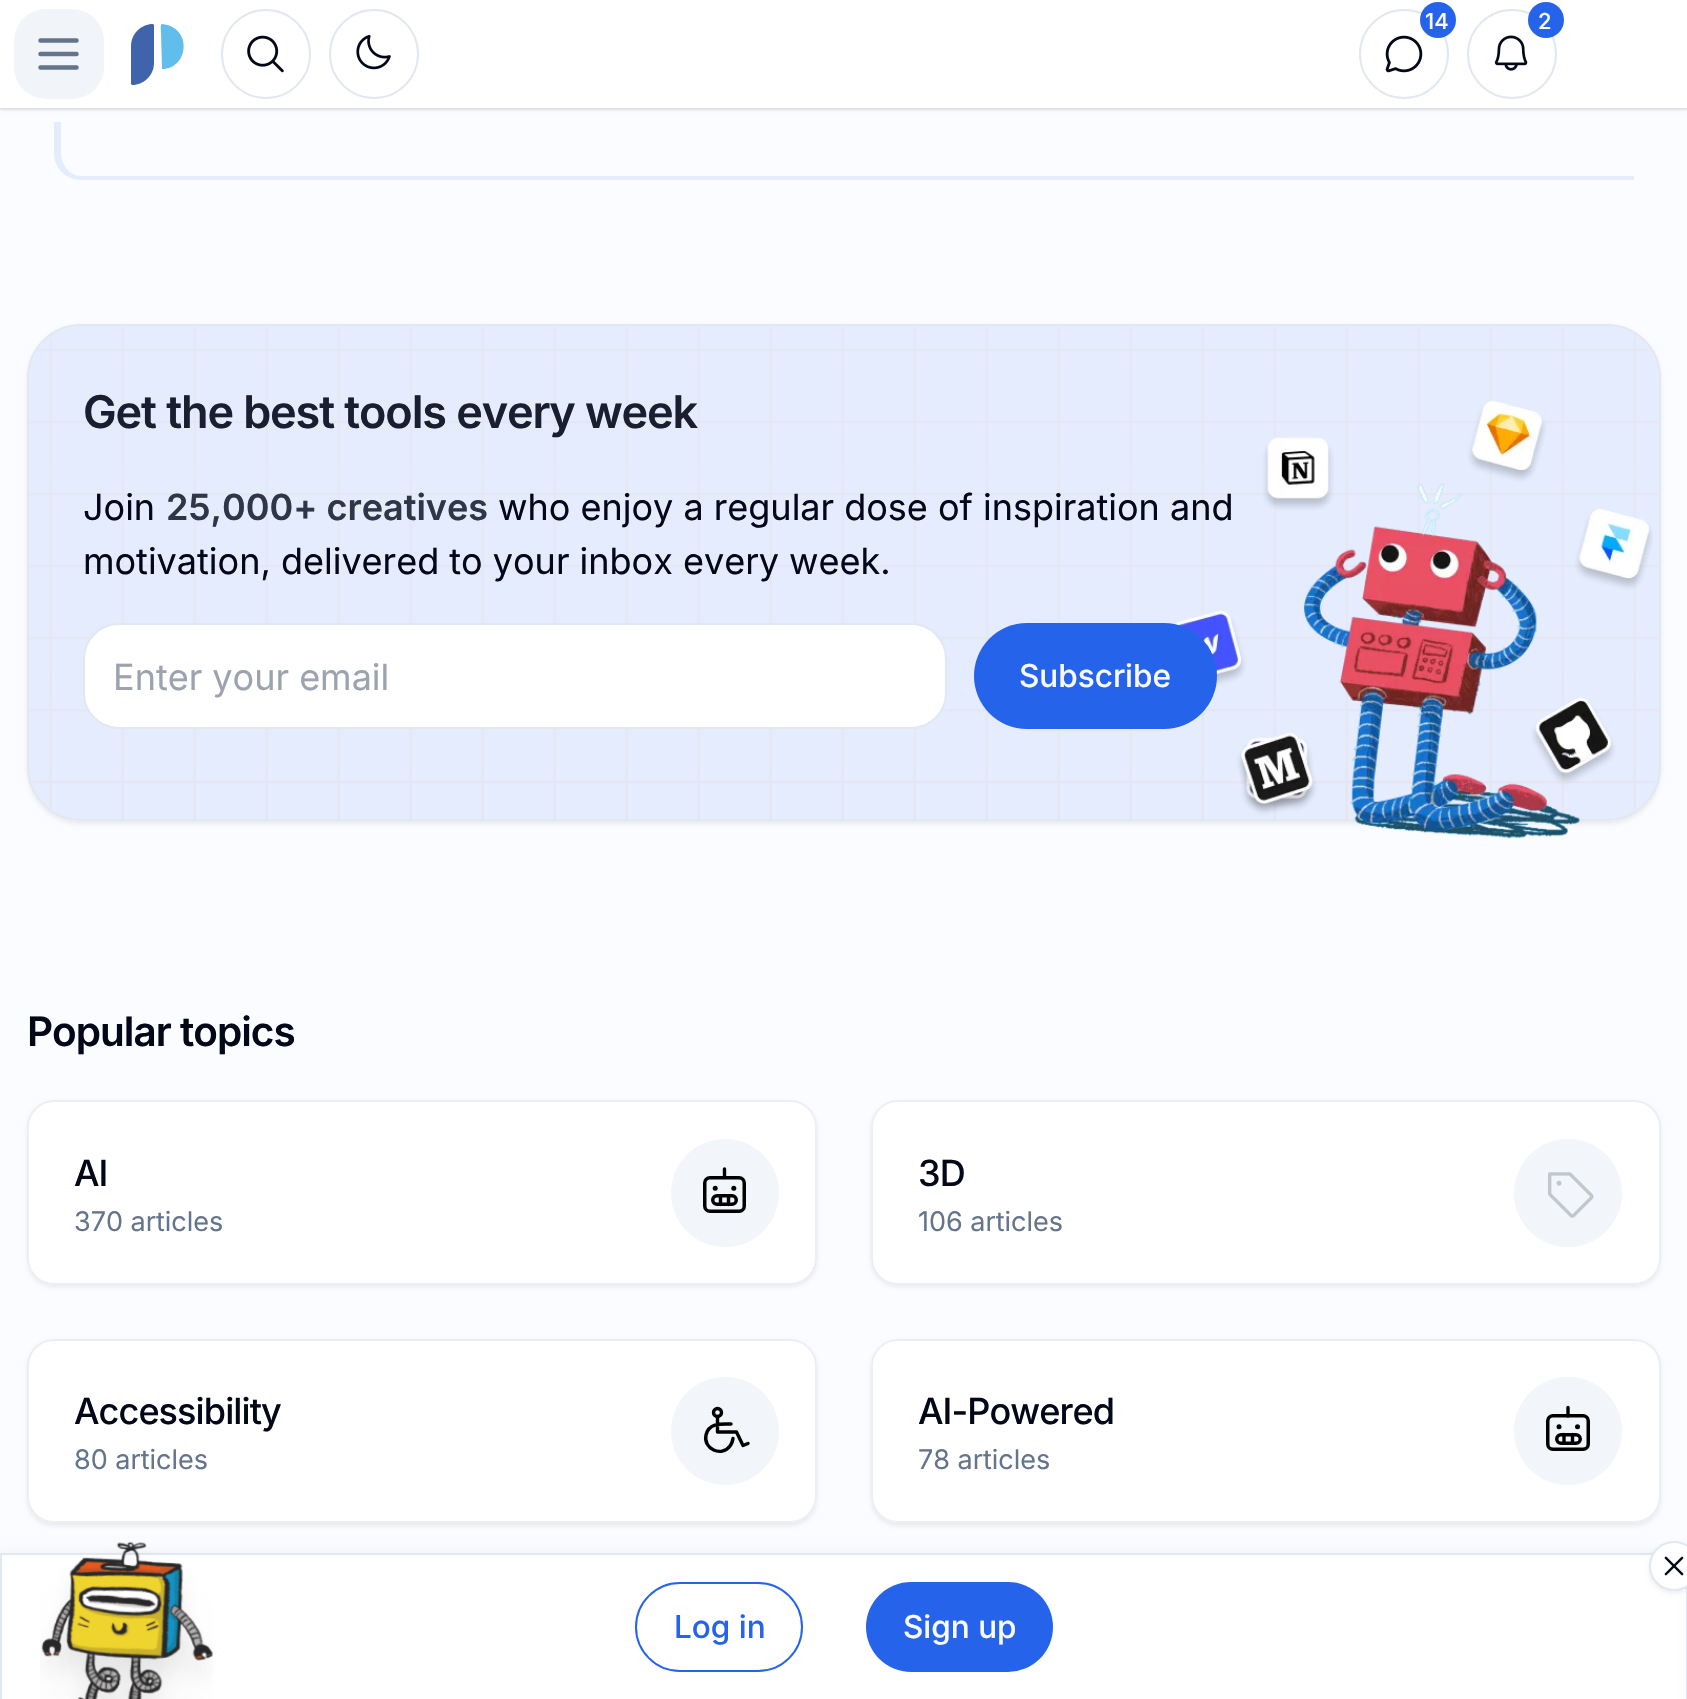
void draw(SkCanvas* canvas) {
    SkPaint paint;
    paint.setAntiAlias(true);
    auto spacedText = [&](const char* s, float x, float y, const SkFont& font, const SkPaint& ink, float letter, float word) {
        std::vector<SkGlyphID> glyphs(font.countText(s, strlen(s), SkTextEncoding::kUTF8));
        std::vector<float> xs(glyphs.size());
        font.textToGlyphs(s, strlen(s), SkTextEncoding::kUTF8, glyphs);
        font.getXPos(glyphs, xs, x);
        float extra = 0;
        for (size_t i = 0; i < glyphs.size(); i++) {
            xs[i] += extra;
            extra += letter + word * (glyphs[i] == font.unicharToGlyph(' '));
        }
        canvas->drawTextBlob(SkTextBlob::MakeFromPosHGlyphs(glyphs, xs, y, font), 0, 0, ink);
    };
    canvas->clear(0xFFFAFCFF);
    paint.setColor(0x12000000);
    paint.setMaskFilter(SkMaskFilter::MakeBlur(kNormal_SkBlurStyle, 2));
    canvas->drawRect(SkRect::MakeXYWH(0, 2, 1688, 108), paint);
    paint.setMaskFilter(nullptr);
    paint.setColor(0xFFFFFFFF);
    canvas->drawRect(SkRect::MakeXYWH(0, 0, 1687, 108), paint);
    paint.setStyle(SkPaint::kStroke_Style);
    paint.setStrokeWidth(2);
    paint.setColor(0x0D020817);
    canvas->drawRect(SkRect::MakeXYWH(-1, -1, 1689, 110), paint);
    paint.setStyle(SkPaint::kFill_Style);
    paint.setColor(0xFFF1F5F9);
    canvas->drawRoundRect(SkRect::MakeXYWH(14, 9, 90, 90), 32, 32, paint);
    paint.setStyle(SkPaint::kStroke_Style);
    paint.setStrokeWidth(4.5f);
    paint.setStrokeCap(SkPaint::kRound_Cap);
    paint.setStrokeJoin(SkPaint::kRound_Join);
    paint.setColor(0xFF64748B);
    canvas->drawPath(SkPathBuilder().moveTo(40.5f, 40.5f).lineTo(76.5f, 40.5f).moveTo(40.5f, 54).lineTo(76.5f, 54).moveTo(40.5f, 67.5f).lineTo(76.5f, 67.5f).detach(), paint);
    paint.setStyle(SkPaint::kFill_Style);
    paint.setColor(0xFF4064AC);
    canvas->drawPath(SkPathBuilder().moveTo(132, 85).lineTo(131, 84).lineTo(131, 46).cubicTo(131, 34, 141, 24, 153, 24).lineTo(154, 25).lineTo(154, 63).cubicTo(154, 75, 144, 85, 132, 85).close().detach(), paint);
    paint.setColor(0xFF61BEEC);
    canvas->drawPath(SkPathBuilder().moveTo(162, 69).lineTo(161, 32).cubicTo(161, 31, 160, 24, 162, 24).cubicTo(193, 27, 189, 69, 162, 69).close().detach(), paint);
    paint.setStyle(SkPaint::kStroke_Style);
    paint.setStrokeWidth(2);
    paint.setStrokeCap(SkPaint::kButt_Cap);
    paint.setStrokeJoin(SkPaint::kMiter_Join);
    paint.setColor(0xFFE2E8F0);
    canvas->drawCircle(266, 54, 44, paint);
    canvas->drawImageRect(SkImages::DeferredFromEncodedData(SkData::MakeFromFileName("img1.png")), SkRect::MakeXYWH(247, 35, 37, 38), SkSamplingOptions());
    canvas->drawCircle(374, 54, 44, paint);
    canvas->drawImageRect(SkImages::DeferredFromEncodedData(SkData::MakeFromFileName("img2.png")), SkRect::MakeXYWH(356, 34, 35, 36), SkSamplingOptions());
    canvas->drawCircle(1404, 54, 44, paint);
    canvas->drawImageRect(SkImages::DeferredFromEncodedData(SkData::MakeFromFileName("img3.png")), SkRect::MakeXYWH(1385, 35, 38, 38), SkSamplingOptions());
    paint.setStyle(SkPaint::kFill_Style);
    paint.setColor(0xFF2563EB);
    canvas->drawCircle(1438, 20, 18, paint);
    SkFont font1(fontMgr->matchFamilyStyle("Inter", SkFontStyle(500, SkFontStyle::kNormal_Width, SkFontStyle::kUpright_Slant)), 22);
    font1.setSubpixel(true);
    paint.setColor(0xFFF8FAFC);
    canvas->drawString("14", 1425, 29, font1, paint);
    paint.setStyle(SkPaint::kStroke_Style);
    paint.setColor(0xFFE2E8F0);
    canvas->drawCircle(1512, 54, 44, paint);
    paint.setStyle(SkPaint::kFill_Style);
    paint.setColor(0xFF2563EB);
    canvas->drawCircle(1546, 20, 18, paint);
    paint.setColor(0xFFF8FAFC);
    canvas->drawString("2", 1538, 29, font1, paint);
    canvas->drawImageRect(SkImages::DeferredFromEncodedData(SkData::MakeFromFileName("img4.png")), SkRect::MakeXYWH(1494, 35, 34, 36), SkSamplingOptions());
    paint.setColor(0xFFE5EDFD);
    canvas->drawPath(SkPathBuilder(SkPathFillType::kEvenOdd).moveTo(54, 122).lineTo(1634, 122).lineTo(1634, 180).lineTo(81, 180).cubicTo(66, 180, 54, 168, 54, 153).close().moveTo(61, 122).lineTo(1634, 122).lineTo(1634, 176).lineTo(81, 176).cubicTo(70, 176, 61, 165, 61, 153).close().detach(), paint);
    canvas->save();
    canvas->clipPath(SkPathBuilder(SkPathFillType::kEvenOdd).moveTo(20, 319).lineTo(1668, 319).lineTo(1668, 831).lineTo(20, 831).close().moveTo(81, 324).lineTo(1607, 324).cubicTo(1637, 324, 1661, 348, 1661, 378).lineTo(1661, 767).cubicTo(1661, 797, 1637, 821, 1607, 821).lineTo(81, 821).cubicTo(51, 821, 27, 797, 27, 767).lineTo(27, 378).cubicTo(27, 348, 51, 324, 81, 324).close().detach(), true);
    paint.setColor(0x12000000);
    paint.setMaskFilter(SkMaskFilter::MakeBlur(kNormal_SkBlurStyle, 2));
    canvas->drawRoundRect(SkRect::MakeXYWH(27, 326, 1634, 498), 54, 54, paint);
    paint.setMaskFilter(nullptr);
    canvas->restore();
    paint.setColor(0x1A2563EB);
    canvas->drawRoundRect(SkRect::MakeXYWH(28, 325, 1632, 495), 53, 53, paint);
    paint.setStyle(SkPaint::kStroke_Style);
    paint.setColor(0xFFE2E8F0);
    canvas->drawRoundRect(SkRect::MakeXYWH(28, 325, 1632, 495), 53, 53, paint);
    canvas->drawImageRect(SkImages::DeferredFromEncodedData(SkData::MakeFromFileName("img5.png")), SkRect::MakeXYWH(29, 327, 1629, 492), SkSamplingOptions());
    SkFont font2(fontMgr->matchFamilyStyle("Inter", SkFontStyle(600, SkFontStyle::kNormal_Width, SkFontStyle::kUpright_Slant)), 45);
    font2.setSubpixel(true);
    paint.setStyle(SkPaint::kFill_Style);
    paint.setColor(0xFF191F2E);
    spacedText("Get the best tools every week", 83, 428, font2, paint, -1.1f, 0);
    SkFont font3(fontMgr->matchFamilyStyle("Inter", SkFontStyle::Normal()), 36);
    font3.setSubpixel(true);
    paint.setColor(0xFF020817);
    canvas->drawString("Join", 83, 520, font3, paint);
    SkFont font4(fontMgr->matchFamilyStyle("Inter", SkFontStyle(600, SkFontStyle::kNormal_Width, SkFontStyle::kUpright_Slant)), 36);
    font4.setSubpixel(true);
    paint.setColor(0xFF2F3645);
    canvas->drawString("25,000+ creatives", 166, 520, font4, paint);
    canvas->drawImageRect(SkImages::DeferredFromEncodedData(SkData::MakeFromFileName("img6.png")), SkRect::MakeXYWH(1174, 400, 479, 441), SkSamplingOptions());
    paint.setColor(0xFF020817);
    canvas->drawString("who enjoy a regular dose of inspiration and", 498, 520, font3, paint);
    canvas->drawString("motivation, delivered to your inbox every week.", 83, 574, font3, paint);
    paint.setColor(0xFFFFFFFF);
    canvas->drawRoundRect(SkRect::MakeXYWH(84, 624, 862, 104), 35, 35, paint);
    paint.setStyle(SkPaint::kStroke_Style);
    paint.setColor(0xFFE2E8F0);
    canvas->drawRoundRect(SkRect::MakeXYWH(84, 624, 862, 104), 35, 35, paint);
    paint.setStyle(SkPaint::kFill_Style);
    paint.setColor(0xFF9CA3AF);
    canvas->drawString("Enter your email", 113, 690, font3, paint);
    paint.setColor(0xFF2563EB);
    canvas->drawRoundRect(SkRect::MakeXYWH(974, 623, 243, 106), 53, 53, paint);
    SkFont font5(fontMgr->matchFamilyStyle("Inter", SkFontStyle(500, SkFontStyle::kNormal_Width, SkFontStyle::kUpright_Slant)), 31.5f);
    font5.setSubpixel(true);
    paint.setColor(0xFFF8FAFC);
    canvas->drawString("Subscribe", 1019, 687, font5, paint);
    SkFont font6(fontMgr->matchFamilyStyle("Inter", SkFontStyle(600, SkFontStyle::kNormal_Width, SkFontStyle::kUpright_Slant)), 40.5f);
    font6.setSubpixel(true);
    paint.setColor(0xFF020817);
    spacedText("Popular topics", 27, 1046, font6, paint, -1, 0);
    paint.setColor(0x12000000);
    paint.setMaskFilter(SkMaskFilter::MakeBlur(kNormal_SkBlurStyle, 2));
    canvas->drawRoundRect(SkRect::MakeXYWH(27, 1103, 790, 184), 27, 27, paint);
    paint.setMaskFilter(nullptr);
    paint.setColor(0xFFFFFFFF);
    canvas->drawRoundRect(SkRect::MakeXYWH(27, 1100, 790, 185), 27, 27, paint);
    paint.setStyle(SkPaint::kStroke_Style);
    paint.setColor(0xB3E2E8F0);
    canvas->drawRoundRect(SkRect::MakeXYWH(28, 1101, 788, 183), 26, 26, paint);
    SkFont font7(fontMgr->matchFamilyStyle("Inter", SkFontStyle(500, SkFontStyle::kNormal_Width, SkFontStyle::kUpright_Slant)), 36);
    font7.setSubpixel(true);
    paint.setStyle(SkPaint::kFill_Style);
    paint.setColor(0xFF020817);
    spacedText("AI", 74, 1186, font7, paint, -0.9f, 0);
    SkFont font8(fontMgr->matchFamilyStyle("Inter", SkFontStyle::Normal()), 27);
    font8.setSubpixel(true);
    paint.setColor(0xFF64748B);
    canvas->drawString("370 articles", 74, 1231, font8, paint);
    paint.setColor(0xFFF2F6FA);
    canvas->drawCircle(725, 1193, 54, paint);
    paint.setStyle(SkPaint::kStroke_Style);
    paint.setStrokeWidth(3.5f);
    paint.setColor(0xFF000000);
    canvas->drawRoundRect(SkRect::MakeXYWH(704.75f, 1177.75f, 39.5f, 33.5f), 5.25f, 5.25f, paint);
    canvas->drawRoundRect(SkRect::MakeXYWH(712.75f, 1195.75f, 23.5f, 8.5f), 4.25f, 4.25f, paint);
    paint.setStrokeWidth(3.4f);
    paint.setStrokeCap(SkPaint::kRound_Cap);
    paint.setStrokeJoin(SkPaint::kRound_Join);
    canvas->drawPath(SkPathBuilder().moveTo(728.5f, 1196).lineTo(728.5f, 1204.5f).moveTo(720.5f, 1196).lineTo(720.5f, 1204.5f).moveTo(724.5f, 1177.5f).lineTo(724.5f, 1169).detach(), paint);
    paint.setStyle(SkPaint::kFill_Style);
    canvas->drawCircle(715.2f, 1188.3f, 2.5f, paint);
    canvas->drawCircle(733.8f, 1188.3f, 2.5f, paint);
    paint.setColor(0x12000000);
    paint.setMaskFilter(SkMaskFilter::MakeBlur(kNormal_SkBlurStyle, 2));
    canvas->drawRoundRect(SkRect::MakeXYWH(871, 1103, 790, 184), 27, 27, paint);
    paint.setMaskFilter(nullptr);
    paint.setColor(0xFFFFFFFF);
    canvas->drawRoundRect(SkRect::MakeXYWH(871, 1100, 790, 185), 27, 27, paint);
    paint.setStyle(SkPaint::kStroke_Style);
    paint.setStrokeWidth(2);
    paint.setStrokeCap(SkPaint::kButt_Cap);
    paint.setStrokeJoin(SkPaint::kMiter_Join);
    paint.setColor(0xB3E2E8F0);
    canvas->drawRoundRect(SkRect::MakeXYWH(872, 1101, 788, 183), 26, 26, paint);
    paint.setStyle(SkPaint::kFill_Style);
    paint.setColor(0xFF020817);
    spacedText("3D", 918, 1186, font7, paint, -0.9f, 0);
    paint.setColor(0xFF64748B);
    canvas->drawString("106 articles", 918, 1231, font8, paint);
    paint.setColor(0xFFF2F6FA);
    canvas->drawCircle(1568, 1193, 54, paint);
    canvas->drawImageRect(SkImages::DeferredFromEncodedData(SkData::MakeFromFileName("img7.png")), SkRect::MakeXYWH(1548, 1172, 46, 46), SkSamplingOptions());
    paint.setColor(0x12000000);
    paint.setMaskFilter(SkMaskFilter::MakeBlur(kNormal_SkBlurStyle, 2));
    canvas->drawRoundRect(SkRect::MakeXYWH(27, 1341, 790, 185), 27, 27, paint);
    paint.setMaskFilter(nullptr);
    paint.setColor(0xFFFFFFFF);
    canvas->drawRoundRect(SkRect::MakeXYWH(27, 1339, 790, 184), 27, 27, paint);
    paint.setStyle(SkPaint::kStroke_Style);
    paint.setColor(0xB3E2E8F0);
    canvas->drawRoundRect(SkRect::MakeXYWH(28, 1340, 788, 182), 26, 26, paint);
    paint.setStyle(SkPaint::kFill_Style);
    paint.setColor(0xFF020817);
    spacedText("Accessibility", 74, 1424, font7, paint, -0.9f, 0);
    paint.setColor(0xFF64748B);
    canvas->drawString("80 articles", 74, 1469, font8, paint);
    paint.setColor(0xFFF2F6FA);
    canvas->drawCircle(725, 1431, 54, paint);
    paint.setStyle(SkPaint::kStroke_Style);
    paint.setStrokeWidth(3.4f);
    paint.setColor(0xFF000000);
    canvas->drawCircle(717.5f, 1412.5f, 4, paint);
    paint.setStrokeCap(SkPaint::kRound_Cap);
    paint.setStrokeJoin(SkPaint::kRound_Join);
    canvas->drawPath(SkPathBuilder().moveTo(717.5f, 1416.5f).lineTo(717.5f, 1432).lineTo(736.5f, 1432).lineTo(743, 1445.5f).lineTo(748, 1443.5f).moveTo(733, 1438.5f).cubicTo(732.5f, 1441, 732, 1444, 730, 1446).cubicTo(721.5f, 1457.5f, 703, 1449, 706, 1435).cubicTo(709, 1422.5f, 721.5f, 1424, 731, 1424).detach(), paint);
    paint.setStyle(SkPaint::kFill_Style);
    paint.setColor(0x12000000);
    paint.setMaskFilter(SkMaskFilter::MakeBlur(kNormal_SkBlurStyle, 2));
    canvas->drawRoundRect(SkRect::MakeXYWH(871, 1341, 790, 185), 27, 27, paint);
    paint.setMaskFilter(nullptr);
    paint.setColor(0xFFFFFFFF);
    canvas->drawRoundRect(SkRect::MakeXYWH(871, 1339, 790, 184), 27, 27, paint);
    paint.setStyle(SkPaint::kStroke_Style);
    paint.setStrokeWidth(2);
    paint.setStrokeCap(SkPaint::kButt_Cap);
    paint.setStrokeJoin(SkPaint::kMiter_Join);
    paint.setColor(0xB3E2E8F0);
    canvas->drawRoundRect(SkRect::MakeXYWH(872, 1340, 788, 182), 26, 26, paint);
    paint.setStyle(SkPaint::kFill_Style);
    paint.setColor(0xFF020817);
    spacedText("AI-Powered", 918, 1424, font7, paint, -0.9f, 0);
    paint.setColor(0xFF64748B);
    canvas->drawString("78 articles", 918, 1469, font8, paint);
    paint.setColor(0xFFF2F6FA);
    canvas->drawCircle(1568, 1431, 54, paint);
    paint.setStyle(SkPaint::kStroke_Style);
    paint.setStrokeWidth(3.5f);
    paint.setColor(0xFF000000);
    canvas->drawRoundRect(SkRect::MakeXYWH(1547.75f, 1415.75f, 40.5f, 33.5f), 5.25f, 5.25f, paint);
    canvas->drawRoundRect(SkRect::MakeXYWH(1556.75f, 1434.75f, 23.5f, 8.5f), 4.25f, 4.25f, paint);
    paint.setStrokeWidth(3.4f);
    paint.setStrokeCap(SkPaint::kRound_Cap);
    paint.setStrokeJoin(SkPaint::kRound_Join);
    canvas->drawPath(SkPathBuilder().moveTo(1572.5f, 1434.5f).lineTo(1572.5f, 1443).moveTo(1564, 1434.5f).lineTo(1564, 1443).moveTo(1568, 1416).lineTo(1568, 1407.5f).detach(), paint);
    paint.setStyle(SkPaint::kFill_Style);
    canvas->drawCircle(1559, 1426.8f, 2.5f, paint);
    canvas->drawCircle(1577.5f, 1426.8f, 2.5f, paint);
    paint.setColor(0x1A000000);
    paint.setMaskFilter(SkMaskFilter::MakeBlur(kNormal_SkBlurStyle, 7));
    canvas->drawRect(SkRect::MakeXYWH(0, 1557, 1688, 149), paint);
    paint.setMaskFilter(nullptr);
    paint.setColor(0xFFFFFFFF);
    canvas->drawRect(SkRect::MakeXYWH(1, 1554, 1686, 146), paint);
    paint.setStyle(SkPaint::kStroke_Style);
    paint.setStrokeWidth(2);
    paint.setStrokeCap(SkPaint::kButt_Cap);
    paint.setStrokeJoin(SkPaint::kMiter_Join);
    paint.setColor(0xFFE2E8F0);
    canvas->drawRect(SkRect::MakeXYWH(1, 1554, 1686, 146), paint);
    canvas->drawImageRect(SkImages::DeferredFromEncodedData(SkData::MakeFromFileName("img8.png")), SkRect::MakeXYWH(40, 1542, 173, 157), SkSamplingOptions());
    paint.setStyle(SkPaint::kFill_Style);
    paint.setColor(0x12000000);
    paint.setMaskFilter(SkMaskFilter::MakeBlur(kNormal_SkBlurStyle, 2));
    canvas->drawRoundRect(SkRect::MakeXYWH(1649, 1544, 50, 49), 24.5f, 24.5f, paint);
    paint.setMaskFilter(nullptr);
    paint.setColor(0xFFFFFFFF);
    canvas->drawCircle(1674, 1566, 24, paint);
    paint.setStyle(SkPaint::kStroke_Style);
    paint.setColor(0xFFE2E8F0);
    canvas->drawCircle(1674, 1566, 24, paint);
    canvas->drawImageRect(SkImages::DeferredFromEncodedData(SkData::MakeFromFileName("img9.png")), SkRect::MakeXYWH(1664, 1556, 20, 20), SkSamplingOptions());
    paint.setColor(0xFF2563EB);
    canvas->drawRoundRect(SkRect::MakeXYWH(636, 1583, 166, 88), 44, 44, paint);
    paint.setStyle(SkPaint::kFill_Style);
    canvas->drawString("Log in", 674, 1638, font5, paint);
    canvas->drawRoundRect(SkRect::MakeXYWH(866, 1582, 187, 90), 45, 45, paint);
    paint.setColor(0xFFF8FAFC);
    canvas->drawString("Sign up", 903, 1638, font5, paint);
}
